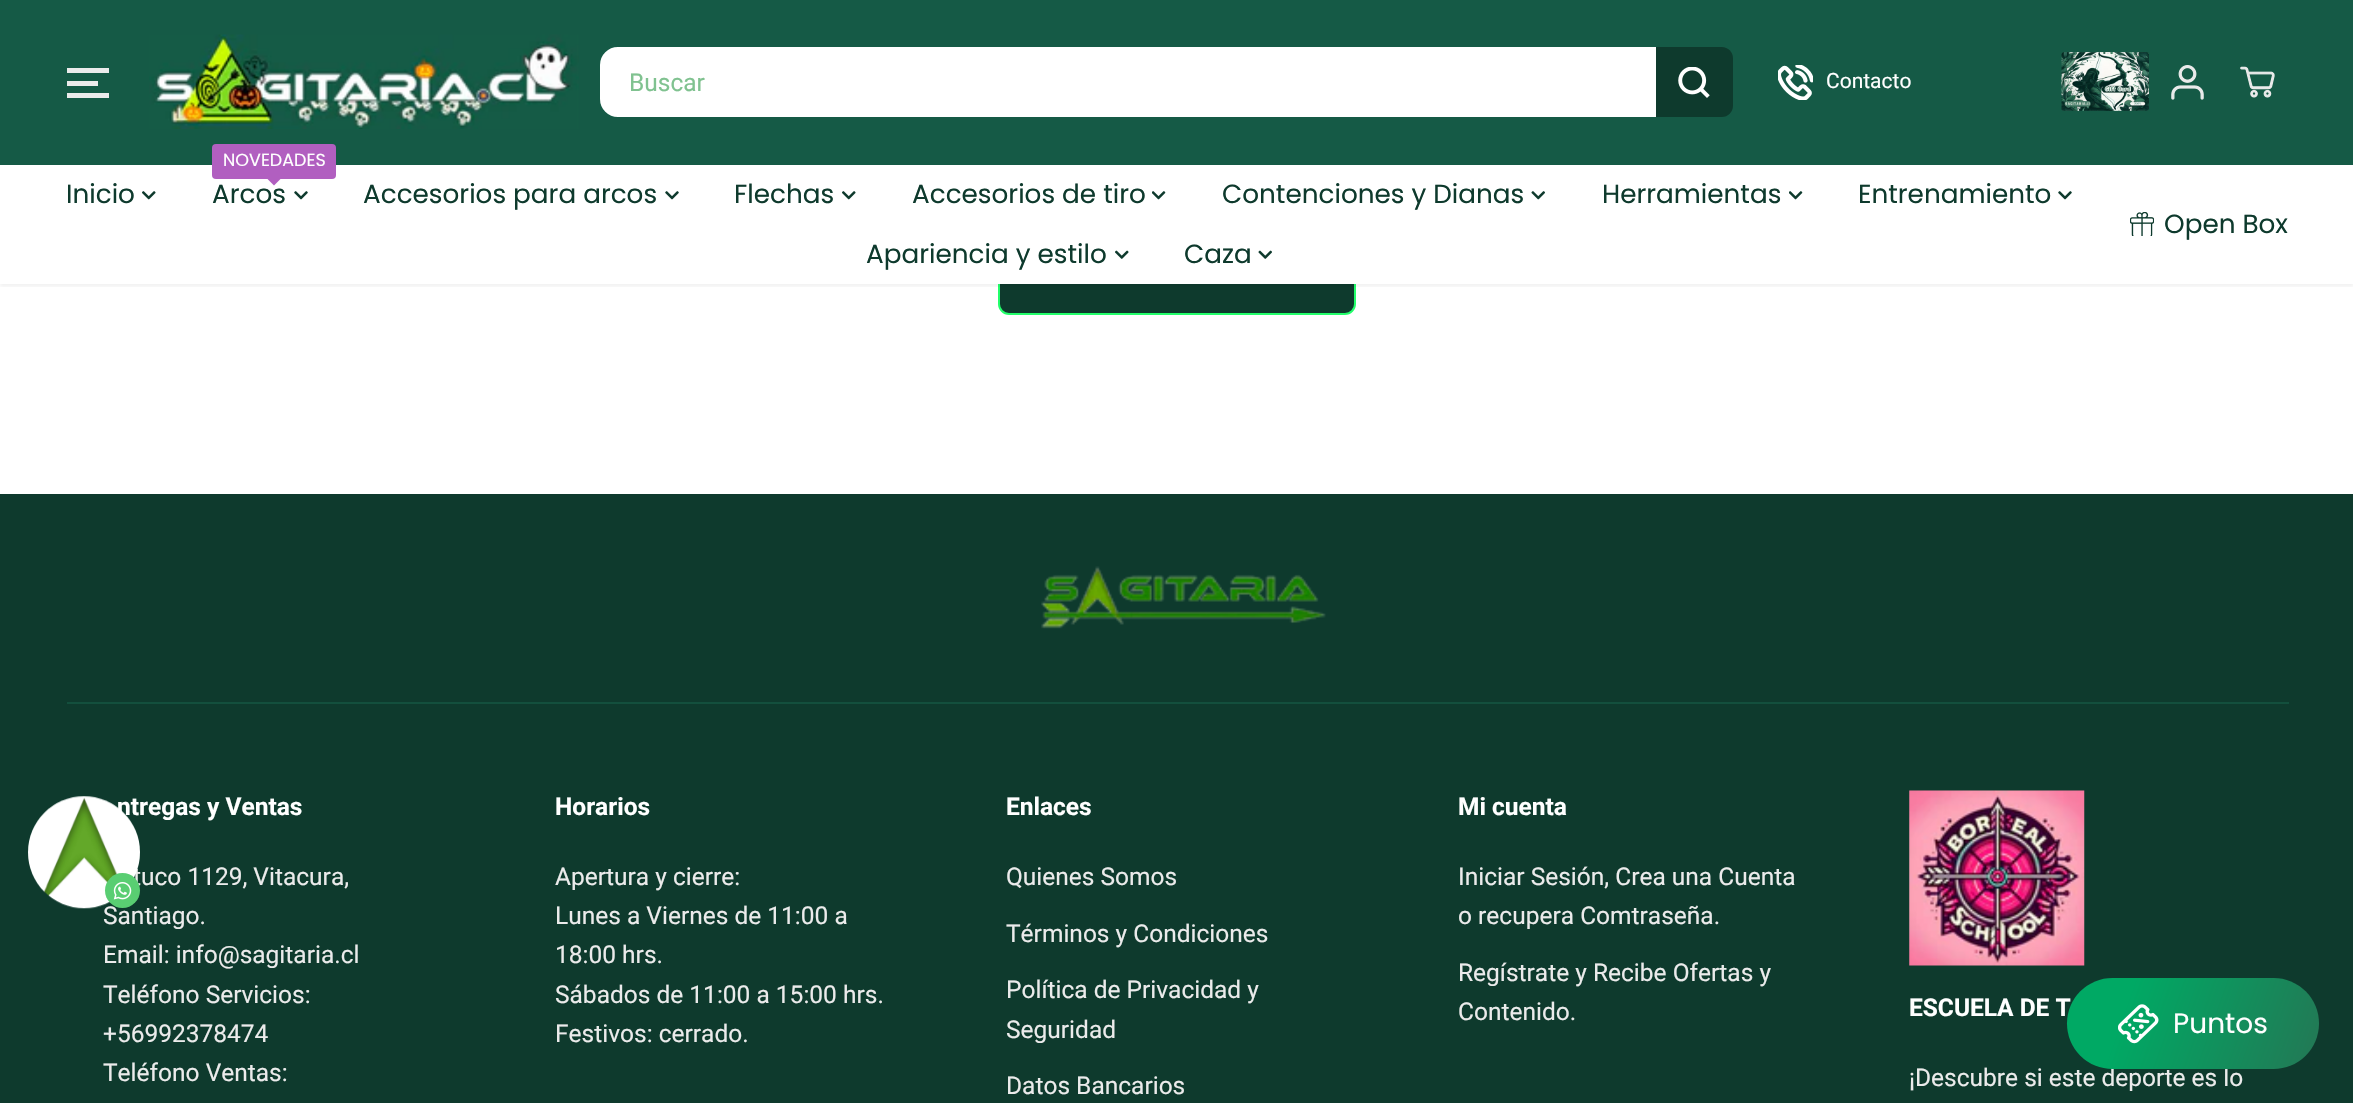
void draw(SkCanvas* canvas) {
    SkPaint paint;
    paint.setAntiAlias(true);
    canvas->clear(0xFFFFFFFF);
    paint.setColor(0xFF155A46);
    canvas->drawRect(SkRect::MakeXYWH(0, 0, 2353, 165), paint);
    paint.setColor(0xFF0E3A2D);
    canvas->drawRoundRect(SkRect::MakeXYWH(999, 239, 356, 75), 10, 10, paint);
    paint.setStyle(SkPaint::kStroke_Style);
    paint.setStrokeWidth(2);
    paint.setColor(0xFF23FF6B);
    canvas->drawRoundRect(SkRect::MakeXYWH(999, 239, 356, 75), 10, 10, paint);
    canvas->save();
    canvas->clipRect(SkRect::MakeXYWH(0, 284, 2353, 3));
    paint.setStyle(SkPaint::kFill_Style);
    paint.setColor(0x0D000000);
    paint.setMaskFilter(SkMaskFilter::MakeBlur(kNormal_SkBlurStyle, 2));
    canvas->drawRect(SkRect::MakeXYWH(0, 4, 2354, 283), paint);
    paint.setMaskFilter(nullptr);
    canvas->restore();
    paint.setColor(0xFFEBEBEB);
    canvas->drawRect(SkRect::MakeXYWH(67, 81, 31, 5), paint);
    canvas->drawRect(SkRect::MakeXYWH(67, 68, 42, 5), paint);
    canvas->drawRect(SkRect::MakeXYWH(67, 93, 42, 5), paint);
    canvas->drawImageRect(SkImages::DeferredFromEncodedData(SkData::MakeFromFileName("img1.png")), SkRect::MakeXYWH(149, 34, 430, 95), SkSamplingOptions());
    paint.setColor(0xFFFFFFFF);
    canvas->drawRoundRect(SkRect::MakeXYWH(602, 49, 1129, 66), 16, 16, paint);
    paint.setStyle(SkPaint::kStroke_Style);
    paint.setStrokeWidth(4);
    canvas->drawRoundRect(SkRect::MakeXYWH(602, 49, 1129, 66), 16, 16, paint);
    SkFont font1(fontMgr->matchFamilyStyle("Roboto", SkFontStyle::Normal()), 24.5f);
    font1.setSubpixel(true);
    paint.setStyle(SkPaint::kFill_Style);
    paint.setColor(0xFF80C290);
    canvas->drawString("Buscar", 629, 91, font1, paint);
    paint.setColor(0xFF0E3A2D);
    canvas->drawPath(SkPathBuilder().moveTo(1656, 47).lineTo(1722, 47).cubicTo(1728, 47, 1733, 52, 1733, 58).lineTo(1733, 106).cubicTo(1733, 112, 1728, 117, 1722, 117).lineTo(1656, 117).close().detach(), paint);
    canvas->drawImageRect(SkImages::DeferredFromEncodedData(SkData::MakeFromFileName("img2.png")), SkRect::MakeXYWH(1678, 67, 32, 31), SkSamplingOptions());
    canvas->drawImageRect(SkImages::DeferredFromEncodedData(SkData::MakeFromFileName("img3.png")), SkRect::MakeXYWH(1778, 65, 35, 35), SkSamplingOptions());
    SkFont font2(fontMgr->matchFamilyStyle("Roboto", SkFontStyle::Normal()), 21);
    font2.setSubpixel(true);
    paint.setColor(0xFFFFFFFF);
    canvas->drawString("Contacto", 1826, 88, font2, paint);
    canvas->drawImageRect(SkImages::DeferredFromEncodedData(SkData::MakeFromFileName("img4.png")), SkRect::MakeXYWH(2061, 52, 88, 59), SkSamplingOptions());
    canvas->drawImageRect(SkImages::DeferredFromEncodedData(SkData::MakeFromFileName("img5.png")), SkRect::MakeXYWH(2171, 65, 33, 35), SkSamplingOptions());
    canvas->drawImageRect(SkImages::DeferredFromEncodedData(SkData::MakeFromFileName("img6.png")), SkRect::MakeXYWH(2240, 66, 35, 32), SkSamplingOptions());
    canvas->drawRect(SkRect::MakeXYWH(0, 238, 2353, 46), paint);
    SkFont font3(fontMgr->matchFamilyStyle("Poppins", SkFontStyle::Normal()), 26.25f);
    font3.setSubpixel(true);
    paint.setColor(0xFF0E3A2D);
    canvas->drawString("Inicio", 66, 203, font3, paint);
    canvas->drawImageRect(SkImages::DeferredFromEncodedData(SkData::MakeFromFileName("img7.png")), SkRect::MakeXYWH(142, 191, 14, 9), SkSamplingOptions());
    paint.setColor(0xFFB15FC0);
    canvas->drawRoundRect(SkRect::MakeXYWH(212, 144, 124, 35), 4, 4, paint);
    SkFont font4(fontMgr->matchFamilyStyle("Poppins", SkFontStyle::Normal()), 17.5f);
    font4.setSubpixel(true);
    paint.setColor(0xFFFFFFFF);
    canvas->drawString("NOVEDADES", 223, 166, font4, paint);
    paint.setColor(0xFF0E3A2D);
    canvas->drawString("Arcos", 212, 203, font3, paint);
    paint.setColor(0xFFB15FC0);
    canvas->drawPath(SkPathBuilder().moveTo(263.5f, 175).lineTo(284.5f, 175).lineTo(274, 185.5f).close().detach(), paint);
    canvas->drawImageRect(SkImages::DeferredFromEncodedData(SkData::MakeFromFileName("img8.png")), SkRect::MakeXYWH(294, 191, 14, 9), SkSamplingOptions());
    paint.setColor(0xFF0E3A2D);
    canvas->drawString("Accesorios para arcos", 363, 203, font3, paint);
    canvas->drawImageRect(SkImages::DeferredFromEncodedData(SkData::MakeFromFileName("img8.png")), SkRect::MakeXYWH(665, 191, 14, 9), SkSamplingOptions());
    canvas->drawString("Flechas", 734, 203, font3, paint);
    canvas->drawImageRect(SkImages::DeferredFromEncodedData(SkData::MakeFromFileName("img7.png")), SkRect::MakeXYWH(842, 191, 14, 9), SkSamplingOptions());
    canvas->drawString("Accesorios de tiro", 912, 203, font3, paint);
    canvas->drawImageRect(SkImages::DeferredFromEncodedData(SkData::MakeFromFileName("img9.png")), SkRect::MakeXYWH(1152, 191, 14, 9), SkSamplingOptions());
    canvas->drawString("Contenciones y Dianas", 1222, 203, font3, paint);
    canvas->drawImageRect(SkImages::DeferredFromEncodedData(SkData::MakeFromFileName("img10.png")), SkRect::MakeXYWH(1531, 191, 14, 9), SkSamplingOptions());
    canvas->drawString("Herramientas", 1602, 203, font3, paint);
    canvas->drawImageRect(SkImages::DeferredFromEncodedData(SkData::MakeFromFileName("img9.png")), SkRect::MakeXYWH(1789, 191, 14, 9), SkSamplingOptions());
    canvas->drawString("Entrenamiento", 1858, 203, font3, paint);
    canvas->drawImageRect(SkImages::DeferredFromEncodedData(SkData::MakeFromFileName("img8.png")), SkRect::MakeXYWH(2058, 191, 14, 9), SkSamplingOptions());
    canvas->drawString("Apariencia y estilo", 866, 263, font3, paint);
    canvas->drawImageRect(SkImages::DeferredFromEncodedData(SkData::MakeFromFileName("img11.png")), SkRect::MakeXYWH(1115, 250, 14, 9), SkSamplingOptions());
    canvas->drawString("Caza", 1184, 263, font3, paint);
    canvas->drawImageRect(SkImages::DeferredFromEncodedData(SkData::MakeFromFileName("img12.png")), SkRect::MakeXYWH(1258, 250, 14, 9), SkSamplingOptions());
    canvas->drawImageRect(SkImages::DeferredFromEncodedData(SkData::MakeFromFileName("img13.png")), SkRect::MakeXYWH(2130, 212, 24, 24), SkSamplingOptions());
    canvas->drawString("Open Box", 2164, 233, font3, paint);
    canvas->drawRect(SkRect::MakeXYWH(0, 494, 2353, 609), paint);
    paint.setColor(0xFF134F3D);
    canvas->drawRect(SkRect::MakeXYWH(67, 702, 2222, 2), paint);
    canvas->drawImageRect(SkImages::DeferredFromEncodedData(SkData::MakeFromFileName("img14.png")), SkRect::MakeXYWH(1041, 566, 285, 63), SkSamplingOptions());
    SkFont font5(fontMgr->matchFamilyStyle("Roboto", SkFontStyle::Bold()), 24.5f);
    font5.setSubpixel(true);
    paint.setColor(0xFFFFFFFF);
    canvas->drawString("ntregas y Ventas", 117, 815, font5, paint);
    paint.setColor(0xFFEBEBEB);
    canvas->drawString("tuco 1129, Vitacura,", 133, 885, font1, paint);
    canvas->drawString("Santiago.", 103, 924, font1, paint);
    canvas->drawString("Email: info@sagitaria.cl", 103, 963, font1, paint);
    canvas->drawString("Teléfono Servicios:", 103, 1003, font1, paint);
    canvas->drawString("+56992378474", 103, 1042, font1, paint);
    canvas->drawString("Teléfono Ventas:", 103, 1081, font1, paint);
    paint.setColor(0xFFFFFFFF);
    canvas->drawString("Horarios", 555, 815, font5, paint);
    paint.setColor(0xFFEBEBEB);
    canvas->drawString("Apertura y cierre:", 555, 885, font1, paint);
    canvas->drawString("Lunes a Viernes de 11:00 a", 555, 924, font1, paint);
    canvas->drawString("18:00 hrs.", 555, 963, font1, paint);
    canvas->drawString("Sábados de 11:00 a 15:00 hrs.", 555, 1003, font1, paint);
    canvas->drawString("Festivos: cerrado.", 555, 1042, font1, paint);
    paint.setColor(0xFFFFFFFF);
    canvas->drawString("Enlaces", 1006, 815, font5, paint);
    paint.setColor(0xFFEBEBEB);
    canvas->drawString("Quienes Somos", 1006, 885, font1, paint);
    canvas->drawString("Términos y Condiciones", 1006, 942, font1, paint);
    canvas->drawString("Política de Privacidad y", 1006, 998, font1, paint);
    canvas->drawString("Seguridad", 1006, 1038, font1, paint);
    canvas->drawString("Datos Bancarios", 1006, 1094, font1, paint);
    paint.setColor(0xFFFFFFFF);
    canvas->drawString("Mi cuenta", 1458, 815, font5, paint);
    paint.setColor(0xFFEBEBEB);
    canvas->drawString("Iniciar Sesión, Crea una Cuenta", 1458, 885, font1, paint);
    canvas->drawString("o recupera Comtraseña.", 1458, 924, font1, paint);
    canvas->drawString("Regístrate y Recibe Ofertas y", 1458, 981, font1, paint);
    canvas->drawString("Contenido.", 1458, 1020, font1, paint);
    canvas->drawImageRect(SkImages::DeferredFromEncodedData(SkData::MakeFromFileName("img15.png")), SkRect::MakeXYWH(1909, 790, 176, 176), SkSamplingOptions());
    paint.setColor(0xFFFFFFFF);
    canvas->drawString("ESCUELA DE T", 1909, 1016, font5, paint);
    paint.setColor(0xFFEBEBEB);
    canvas->drawString("¡Descubre si este deporte es lo", 1909, 1086, font1, paint);
    canvas->drawImageRect(SkImages::DeferredFromEncodedData(SkData::MakeFromFileName("img16.png")), SkRect::MakeXYWH(28, 796, 112, 113), SkSamplingOptions());
    paint.setColor(0xFF59CE72);
    canvas->drawCircle(122.5f, 890.5f, 17.5f, paint);
    canvas->drawImageRect(SkImages::DeferredFromEncodedData(SkData::MakeFromFileName("img17.png")), SkRect::MakeXYWH(113, 882, 19, 18), SkSamplingOptions());
    {
        const SkColor colors[] = {0xFF00A964, 0xFF365D4D};
        const float stops[] = {0.17f, 1};
        const SkPoint ends[] = {{2067, 979}, {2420, 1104}};
        paint.setShader(SkGradientShader::MakeLinear(ends, colors, stops, 2, SkTileMode::kClamp));
        paint.setAlpha(255);
    }
    canvas->drawRoundRect(SkRect::MakeXYWH(2067, 978, 252, 91), 45.5f, 45.5f, paint);
    canvas->drawImageRect(SkImages::DeferredFromEncodedData(SkData::MakeFromFileName("img18.png")), SkRect::MakeXYWH(2118, 1004, 41, 40), SkSamplingOptions());
    SkFont font6(fontMgr->matchFamilyStyle("Poppins", SkFontStyle::Normal()), 28);
    font6.setSubpixel(true);
    paint.setShader(nullptr);
    paint.setColor(0xFFFFFFFF);
    canvas->drawString("Puntos", 2173, 1033, font6, paint);
}
